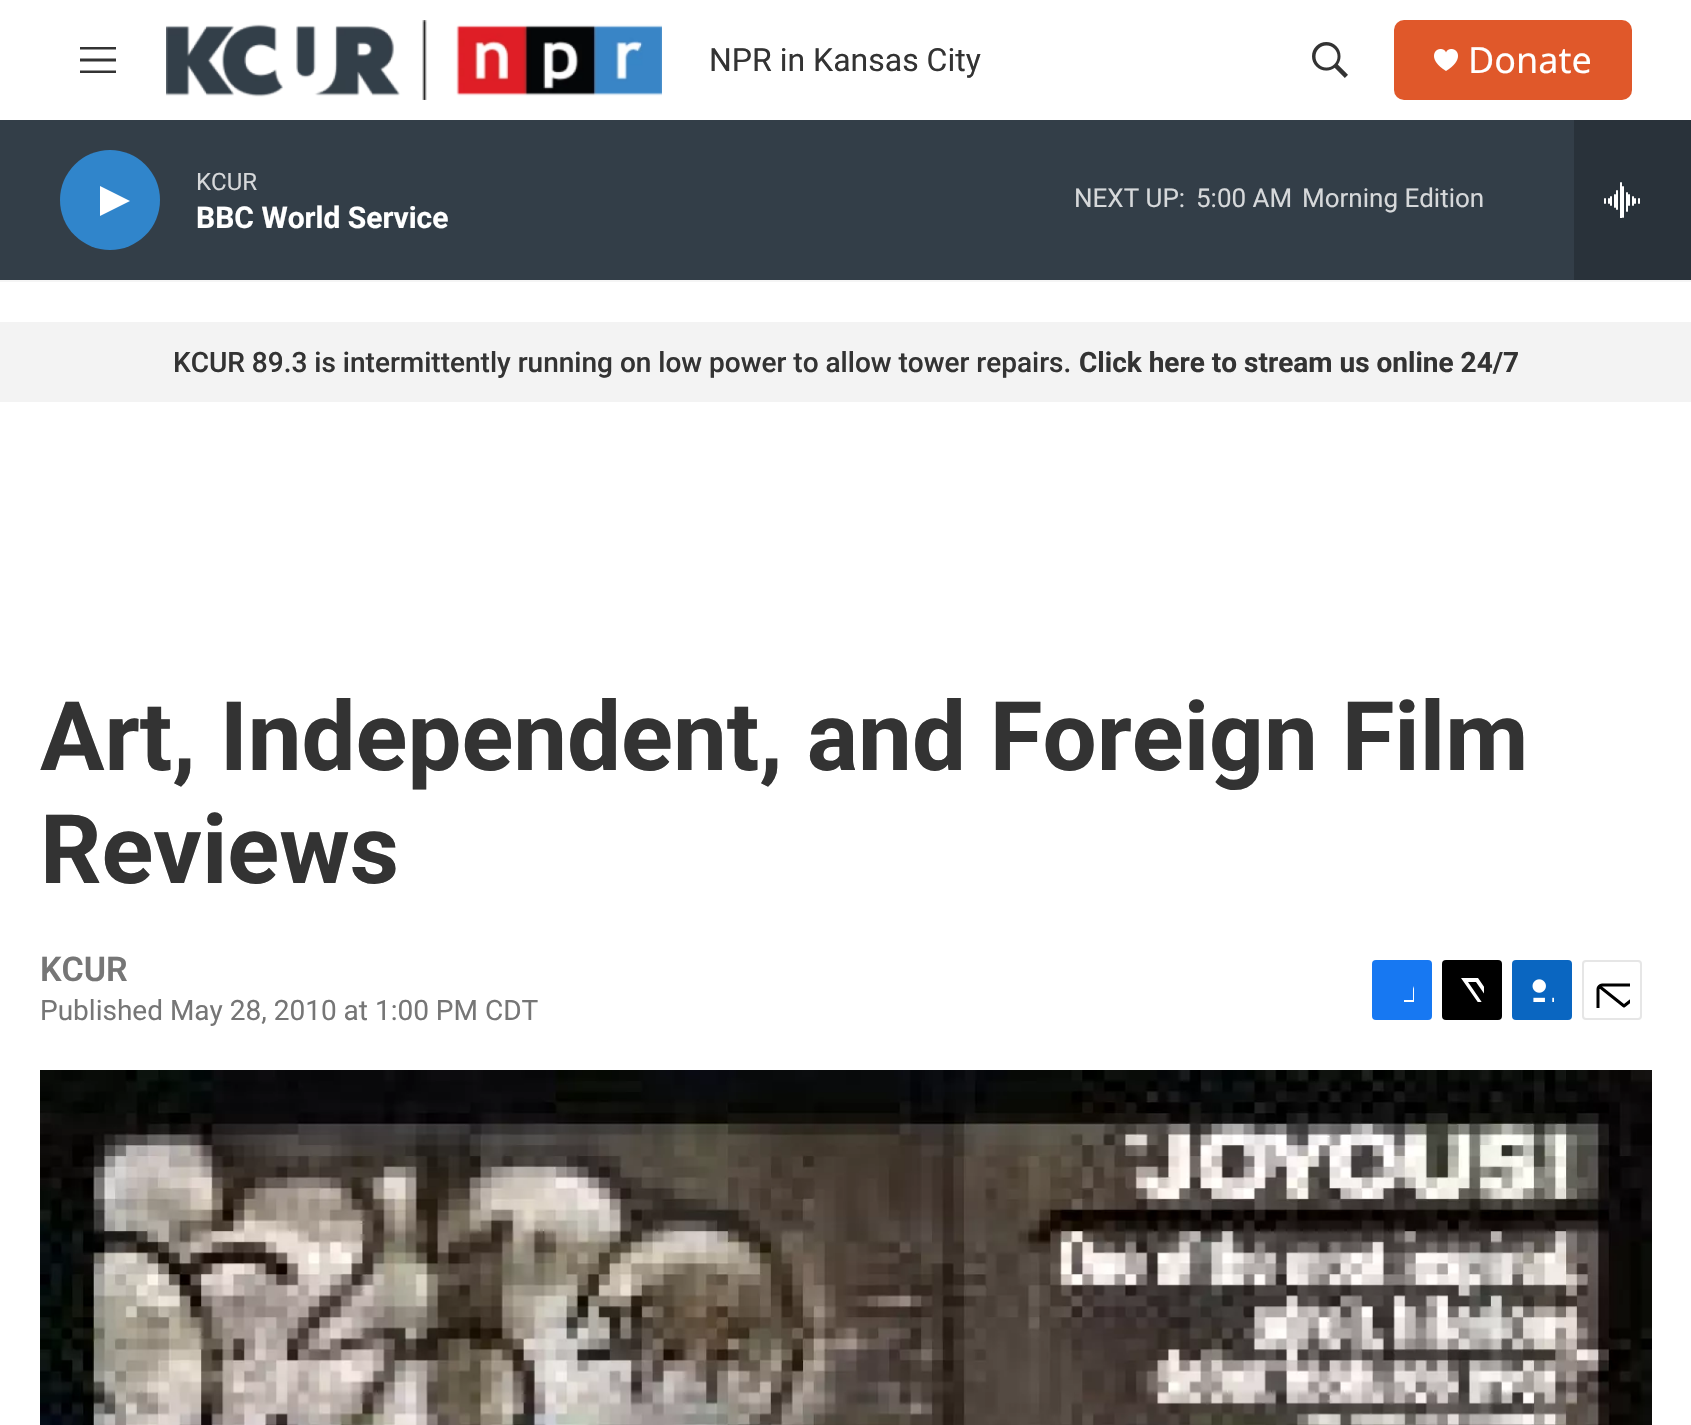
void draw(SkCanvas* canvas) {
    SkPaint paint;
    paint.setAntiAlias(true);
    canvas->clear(0xFFFFFFFF);
    paint.setColor(0xFFF5F5F5);
    canvas->drawRect(SkRect::MakeXYWH(0, 280, 1691, 2), paint);
    paint.setColor(0xFF333333);
    canvas->drawPath(SkPathBuilder(SkPathFillType::kEvenOdd).moveTo(80, 61.5f).lineTo(80, 58.5f).lineTo(116, 58.5f).lineTo(116, 61.5f).close().moveTo(80, 49.5f).lineTo(80, 47).lineTo(116, 47).lineTo(116, 49.5f).close().moveTo(80, 73).lineTo(80, 70.5f).lineTo(116, 70.5f).lineTo(116, 73).close().detach(), paint);
    canvas->drawImageRect(SkImages::DeferredFromEncodedData(SkData::MakeFromFileName("img1.png")), SkRect::MakeXYWH(166, 20, 496, 80), SkSamplingOptions());
    SkFont font1(fontMgr->matchFamilyStyle("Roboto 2", SkFontStyle::Normal()), 32);
    font1.setSubpixel(true);
    canvas->drawString("NPR in Kansas City", 709, 71, font1, paint);
    canvas->drawImageRect(SkImages::DeferredFromEncodedData(SkData::MakeFromFileName("img2.png")), SkRect::MakeXYWH(1312, 42, 36, 36), SkSamplingOptions());
    paint.setColor(0xFFE0582A);
    canvas->drawRoundRect(SkRect::MakeXYWH(1394, 20, 238, 80), 10, 10, paint);
    canvas->drawImageRect(SkImages::DeferredFromEncodedData(SkData::MakeFromFileName("img3.png")), SkRect::MakeXYWH(1434, 49, 24, 22), SkSamplingOptions());
    SkFont font2(fontMgr->matchFamilyStyle("Noto Sans", SkFontStyle::Normal()), 36);
    font2.setSubpixel(true);
    paint.setColor(0xFFFFFFFF);
    canvas->drawString("Donate", 1468, 73, font2, paint);
    paint.setColor(0xFF333E48);
    canvas->drawRect(SkRect::MakeXYWH(0, 120, 1574, 160), paint);
    paint.setColor(0xFF3085CB);
    canvas->drawCircle(110, 200, 50, paint);
    paint.setColor(0xFFFFFFFF);
    canvas->drawPath(SkPathBuilder().moveTo(100, 186).lineTo(130, 201).lineTo(100, 216).close().detach(), paint);
    SkFont font3(fontMgr->matchFamilyStyle("Roboto 2", SkFontStyle::Normal()), 24);
    font3.setSubpixel(true);
    paint.setColor(0xFFD6D8DA);
    canvas->drawString("KCUR", 196, 190, font3, paint);
    SkFont font4(fontMgr->matchFamilyStyle("Roboto", SkFontStyle::Bold()), 30);
    font4.setSubpixel(true);
    paint.setColor(0xFFFFFFFF);
    canvas->drawString("BBC World Service", 196, 228, font4, paint);
    SkFont font5(fontMgr->matchFamilyStyle("Roboto 2", SkFontStyle::Normal()), 26);
    font5.setSubpixel(true);
    paint.setColor(0xFFD6D8DA);
    canvas->drawString("NEXT UP:", 1074, 207, font5, paint);
    canvas->drawString("5:00 AM", 1196, 207, font5, paint);
    canvas->drawString("Morning Edition", 1302, 207, font5, paint);
    paint.setColor(0xFF29323A);
    canvas->drawRect(SkRect::MakeXYWH(1574, 120, 117, 160), paint);
    canvas->drawImageRect(SkImages::DeferredFromEncodedData(SkData::MakeFromFileName("img4.png")), SkRect::MakeXYWH(1604, 182, 36, 36), SkSamplingOptions());
    paint.setColor(0xFFF3F3F3);
    canvas->drawRect(SkRect::MakeXYWH(0, 322, 1691, 80), paint);
    SkFont font6(fontMgr->matchFamilyStyle("Roboto", SkFontStyle(500, SkFontStyle::kNormal_Width, SkFontStyle::kUpright_Slant)), 28);
    font6.setSubpixel(true);
    paint.setColor(0xFF333333);
    canvas->drawString("KCUR 89.3 is intermittently running on low power to allow tower repairs.", 173, 372, font6, paint);
    SkFont font7(fontMgr->matchFamilyStyle("Roboto", SkFontStyle::Bold()), 28);
    font7.setSubpixel(true);
    canvas->drawString("Click here to stream us online 24/7", 1079, 372, font7, paint);
    SkFont font8(fontMgr->matchFamilyStyle("Roboto 2", SkFontStyle::Bold()), 96);
    font8.setSubpixel(true);
    canvas->drawString("Art, Independent, and Foreign Film", 40, 770, font8, paint);
    canvas->drawString("Reviews", 40, 883, font8, paint);
    SkFont font9(fontMgr->matchFamilyStyle("Roboto", SkFontStyle(600, SkFontStyle::kNormal_Width, SkFontStyle::kUpright_Slant)), 34);
    font9.setSubpixel(true);
    paint.setColor(0xFF767676);
    canvas->drawString("KCUR", 40, 981, font9, paint);
    SkFont font10(fontMgr->matchFamilyStyle("Roboto", SkFontStyle::Normal()), 28);
    font10.setSubpixel(true);
    canvas->drawString("Published May 28, 2010 at 1:00 PM CDT", 40, 1020, font10, paint);
    paint.setColor(0xFF1778F2);
    canvas->drawRoundRect(SkRect::MakeXYWH(1372, 960, 60, 60), 4, 4, paint);
    canvas->save();
    canvas->clipRect(SkRect::MakeXYWH(1390, 978, 24, 24));
    paint.setColor(0xFFFFFFFF);
    canvas->drawPath(SkPathBuilder().moveTo(1423, 1020).lineTo(1413, 1020).lineTo(1413, 1010).lineTo(1404, 1010).lineTo(1404, 1000).lineTo(1413, 1000).lineTo(1413, 989).cubicTo(1415, 980, 1424, 978, 1432, 979).lineTo(1432, 988).cubicTo(1421, 988, 1423, 991, 1423, 1000).lineTo(1432, 1000).lineTo(1432, 1005).lineTo(1431, 1010).lineTo(1423, 1010).close().detach(), paint);
    canvas->restore();
    paint.setColor(0xFF000000);
    canvas->drawRoundRect(SkRect::MakeXYWH(1442, 960, 60, 60), 4, 4, paint);
    canvas->save();
    canvas->clipRect(SkRect::MakeXYWH(1460, 978, 24, 24));
    paint.setColor(0xFFFFFFFF);
    canvas->drawPath(SkPathBuilder().moveTo(1496, 1003).lineTo(1502, 1012).cubicTo(1502, 1014, 1503, 1017, 1501, 1018).lineTo(1476, 982).lineTo(1468, 982).lineTo(1494, 1020).lineTo(1489, 1020).lineTo(1486, 1015).lineTo(1482, 1020).lineTo(1476, 1020).lineTo(1484, 1011).lineTo(1461, 978).lineTo(1478, 978).lineTo(1493, 1000).lineTo(1502, 990).lineTo(1502, 996).close().detach(), paint);
    canvas->restore();
    paint.setColor(0xFF0A66C1);
    canvas->drawRoundRect(SkRect::MakeXYWH(1512, 960, 60, 60), 4, 4, paint);
    canvas->drawImageRect(SkImages::DeferredFromEncodedData(SkData::MakeFromFileName("img5.png")), SkRect::MakeXYWH(1532, 979, 22, 23), SkSamplingOptions());
    paint.setStyle(SkPaint::kStroke_Style);
    paint.setStrokeWidth(2);
    paint.setColor(0xFFE6E6E6);
    canvas->drawRoundRect(SkRect::MakeXYWH(1583, 961, 58, 58), 3, 3, paint);
    canvas->save();
    canvas->clipRect(SkRect::MakeXYWH(1594, 972, 36, 36));
    paint.setStrokeWidth(3);
    paint.setStrokeCap(SkPaint::kRound_Cap);
    paint.setStrokeJoin(SkPaint::kRound_Join);
    paint.setColor(0xFF000000);
    canvas->drawPath(SkPathBuilder().moveTo(1650, 1016).cubicTo(1650, 1018, 1648, 1019.5f, 1646, 1019.5f).lineTo(1602, 1019.5f).cubicTo(1600, 1019.5f, 1598, 1018, 1598, 1016).lineTo(1598, 989).cubicTo(1598, 987, 1600, 985, 1602, 985).lineTo(1646, 985).cubicTo(1648, 985, 1650, 987, 1650, 989).close().moveTo(1648.5f, 986.5f).lineTo(1624, 1006).lineTo(1599.5f, 986.5f).detach(), paint);
    canvas->restore();
    canvas->drawImageRect(SkImages::DeferredFromEncodedData(SkData::MakeFromFileName("img6.png")), SkRect::MakeXYWH(40, 1070, 1612, 355), SkSamplingOptions());
}
